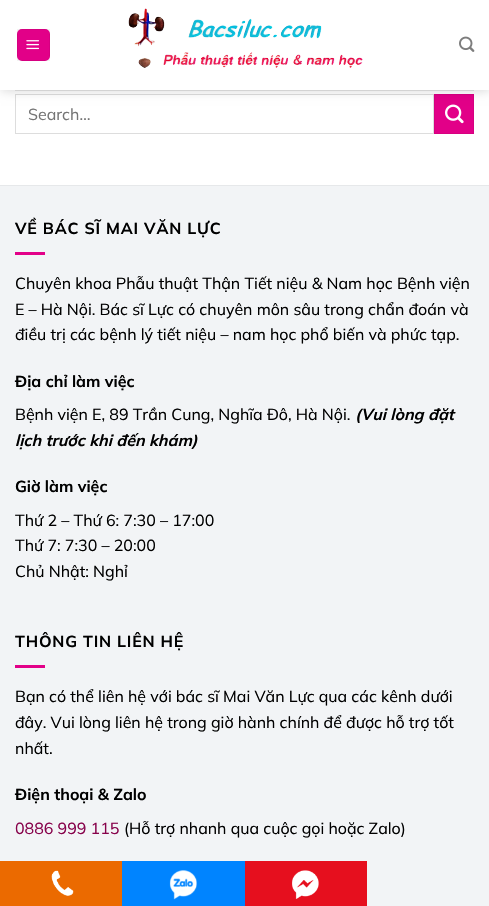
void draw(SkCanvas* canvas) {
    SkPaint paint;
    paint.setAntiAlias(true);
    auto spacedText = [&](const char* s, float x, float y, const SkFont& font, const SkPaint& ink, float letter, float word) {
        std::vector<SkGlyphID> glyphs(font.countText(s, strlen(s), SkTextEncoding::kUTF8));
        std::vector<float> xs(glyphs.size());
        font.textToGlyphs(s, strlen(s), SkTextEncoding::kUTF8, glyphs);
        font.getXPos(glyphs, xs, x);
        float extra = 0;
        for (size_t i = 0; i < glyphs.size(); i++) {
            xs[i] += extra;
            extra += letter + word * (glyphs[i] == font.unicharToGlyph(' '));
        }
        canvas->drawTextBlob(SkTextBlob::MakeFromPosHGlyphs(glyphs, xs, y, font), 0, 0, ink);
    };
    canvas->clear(0xFFFFFFFF);
    paint.setStyle(SkPaint::kStroke_Style);
    paint.setStrokeWidth(1);
    paint.setColor(0xFFDDDDDD);
    canvas->drawRect(SkRect::MakeXYWH(15.5f, 94.5f, 418, 39), paint);
    paint.setStyle(SkPaint::kFill_Style);
    paint.setColor(0xFFE20088);
    canvas->drawRect(SkRect::MakeXYWH(434.5f, 94.5f, 39, 39), paint);
    paint.setStyle(SkPaint::kStroke_Style);
    paint.setColor(0xFFD70081);
    canvas->drawRect(SkRect::MakeXYWH(434.5f, 94.5f, 39, 39), paint);
    canvas->drawImageRect(SkImages::DeferredFromEncodedData(SkData::MakeFromFileName("img4.png")), SkRect::MakeXYWH(445, 104, 19, 20), SkSamplingOptions());
    paint.setStyle(SkPaint::kFill_Style);
    paint.setColor(0x26000000);
    paint.setMaskFilter(SkMaskFilter::MakeBlur(kNormal_SkBlurStyle, 5));
    canvas->drawRect(SkRect::MakeXYWH(1, 1, 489, 90), paint);
    paint.setMaskFilter(nullptr);
    paint.setColor(0xFFFFFFFF);
    canvas->drawRect(SkRect::MakeXYWH(0, 0, 489, 90), paint);
    paint.setColor(0xFFE20088);
    canvas->drawRoundRect(SkRect::MakeXYWH(17, 29, 33, 32), 5, 5, paint);
    paint.setStyle(SkPaint::kStroke_Style);
    paint.setColor(0x0D000000);
    canvas->drawRect(SkRect::MakeXYWH(17.5f, 29.5f, 32, 31), paint);
    canvas->drawImageRect(SkImages::DeferredFromEncodedData(SkData::MakeFromFileName("img1.png")), SkRect::MakeXYWH(26, 40, 13, 10), SkSamplingOptions());
    canvas->drawImageRect(SkImages::DeferredFromEncodedData(SkData::MakeFromFileName("img2.png")), SkRect::MakeXYWH(128, 8, 235, 60), SkSamplingOptions());
    canvas->drawImageRect(SkImages::DeferredFromEncodedData(SkData::MakeFromFileName("img3.png")), SkRect::MakeXYWH(459, 36, 16, 16), SkSamplingOptions());
    paint.setStyle(SkPaint::kFill_Style);
    paint.setColor(0xFFD3D3D3);
    canvas->drawRect(SkRect::MakeXYWH(15, 90, 459, 1), paint);
    SkFont font1(fontMgr->matchFamilyStyle("Mulish", SkFontStyle::Normal()), 16);
    font1.setSubpixel(true);
    paint.setColor(0xFF757575);
    canvas->drawString("Search…", 28, 120, font1, paint);
    paint.setColor(0xFFF2F4F6);
    canvas->drawRect(SkRect::MakeXYWH(0, 186, 489, 720), paint);
    paint.setColor(0xFFE6E8EA);
    canvas->drawRect(SkRect::MakeXYWH(0, 185, 489, 1), paint);
    SkFont font2(fontMgr->matchFamilyStyle("Mulish", SkFontStyle::Bold()), 16);
    font2.setSubpixel(true);
    paint.setColor(0xFF000000);
    spacedText("VỀ BÁC SĨ MAI VĂN LỰC", 15, 234, font2, paint, 0.8f, 0);
    paint.setColor(0xFFE20088);
    canvas->drawRect(SkRect::MakeXYWH(15, 252, 30, 3), paint);
    paint.setColor(0xFF000000);
    canvas->drawString("Chuyên khoa Phẫu thuật Thận Tiết niệu & Nam học Bệnh viện", 15, 289, font1, paint);
    canvas->drawString("E – Hà Nội. Bác sĩ Lực có chuyên môn sâu trong chẩn đoán và", 15, 315, font1, paint);
    canvas->drawString("điều trị các bệnh lý tiết niệu – nam học phổ biến và phức tạp.", 15, 340, font1, paint);
    canvas->drawString("Địa chỉ làm việc", 15, 387, font2, paint);
    canvas->drawString("Bệnh viện E, 89 Trần Cung, Nghĩa Đô, Hà Nội.", 15, 420, font1, paint);
    SkFont font3(fontMgr->matchFamilyStyle("Mulish", SkFontStyle::BoldItalic()), 16);
    font3.setSubpixel(true);
    canvas->drawString("(Vui lòng đặt", 355, 420, font3, paint);
    canvas->drawString("lịch trước khi đến khám)", 15, 446, font3, paint);
    canvas->drawString("Giờ làm việc", 15, 492, font2, paint);
    canvas->drawString("Thứ 2 – Thứ 6: 7:30 – 17:00", 15, 526, font1, paint);
    canvas->drawString("Thứ 7: 7:30 – 20:00", 15, 551, font1, paint);
    canvas->drawString("Chủ Nhật: Nghỉ", 15, 577, font1, paint);
    spacedText("THÔNG TIN LIÊN HỆ", 15, 647, font2, paint, 0.8f, 0);
    paint.setColor(0xFFE20088);
    canvas->drawRect(SkRect::MakeXYWH(15, 665, 30, 3), paint);
    paint.setColor(0xFF000000);
    canvas->drawString("Bạn có thể liên hệ với bác sĩ Mai Văn Lực qua các kênh dưới", 15, 702, font1, paint);
    canvas->drawString("đây. Vui lòng liên hệ trong giờ hành chính để được hỗ trợ tốt", 15, 728, font1, paint);
    canvas->drawString("nhất.", 15, 754, font1, paint);
    canvas->drawString("Điện thoại & Zalo", 15, 800, font2, paint);
    paint.setColor(0xFF87024B);
    canvas->drawString("0886 999 115", 15, 834, font1, paint);
    paint.setColor(0xFF000000);
    canvas->drawString("(Hỗ trợ nhanh qua cuộc gọi hoặc Zalo)", 124, 834, font1, paint);
    paint.setColor(0xFFEB6A00);
    canvas->drawRect(SkRect::MakeXYWH(0, 861, 122, 45), paint);
    canvas->drawImageRect(SkImages::DeferredFromEncodedData(SkData::MakeFromFileName("img5.png")), SkRect::MakeXYWH(51, 870, 23, 26), SkSamplingOptions());
    paint.setColor(0xFF0084FF);
    canvas->drawRect(SkRect::MakeXYWH(122, 861, 123, 45), paint);
    canvas->drawImageRect(SkImages::DeferredFromEncodedData(SkData::MakeFromFileName("img6.png")), SkRect::MakeXYWH(169, 870, 28, 30), SkSamplingOptions());
    paint.setColor(0xFFE60F1E);
    canvas->drawRect(SkRect::MakeXYWH(245, 861, 122, 45), paint);
    canvas->drawImageRect(SkImages::DeferredFromEncodedData(SkData::MakeFromFileName("img7.png")), SkRect::MakeXYWH(292, 870, 27, 29), SkSamplingOptions());
}
